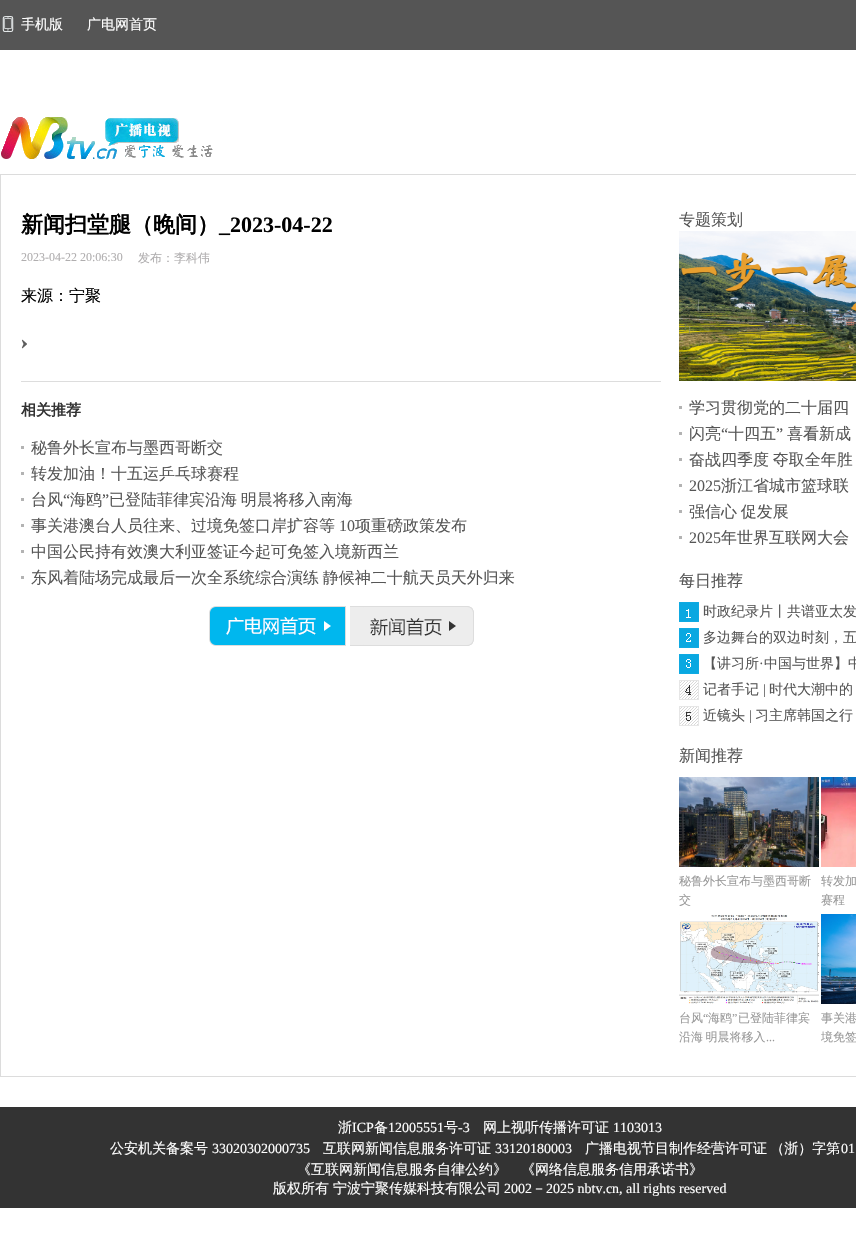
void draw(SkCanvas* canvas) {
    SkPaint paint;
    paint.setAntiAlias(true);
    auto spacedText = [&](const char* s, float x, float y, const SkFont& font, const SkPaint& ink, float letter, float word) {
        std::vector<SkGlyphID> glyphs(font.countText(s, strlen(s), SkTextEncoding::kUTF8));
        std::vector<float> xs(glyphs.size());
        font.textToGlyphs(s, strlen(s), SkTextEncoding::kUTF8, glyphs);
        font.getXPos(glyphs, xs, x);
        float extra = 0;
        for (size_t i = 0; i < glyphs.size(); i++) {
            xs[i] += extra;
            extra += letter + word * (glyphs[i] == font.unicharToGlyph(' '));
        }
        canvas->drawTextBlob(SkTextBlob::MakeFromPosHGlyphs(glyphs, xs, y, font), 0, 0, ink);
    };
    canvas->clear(0xFFFFFFFF);
    paint.setColor(0xFF555555);
    canvas->drawRect(SkRect::MakeXYWH(0, 0, 856, 50), paint);
    canvas->drawImageRect(SkImages::DeferredFromEncodedData(SkData::MakeFromFileName("img1.png")), SkRect::MakeXYWH(2, 16, 12, 16), SkSamplingOptions());
    SkFont font1(fontMgr->matchFamilyStyle("WenQuanYi Zen Hei", SkFontStyle(500, SkFontStyle::kNormal_Width, SkFontStyle::kUpright_Slant)), 14);
    font1.setSubpixel(true);
    paint.setColor(0xFFFFFFFF);
    canvas->drawString("手机版", 21, 29, font1, paint);
    canvas->drawString("广电网首页", 87, 29, font1, paint);
    canvas->drawImageRect(SkImages::DeferredFromEncodedData(SkData::MakeFromFileName("img2.png")), SkRect::MakeXYWH(1, 117, 212, 42), SkSamplingOptions());
    paint.setStyle(SkPaint::kStroke_Style);
    paint.setStrokeWidth(1);
    paint.setColor(0xFFDCDCDC);
    canvas->drawRect(SkRect::MakeXYWH(0.5f, 174.5f, 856, 902), paint);
    SkFont font2(fontMgr->matchFamilyStyle("WenQuanYi Zen Hei", SkFontStyle::Bold()), 22);
    font2.setSubpixel(true);
    paint.setStyle(SkPaint::kFill_Style);
    paint.setColor(0xFF000000);
    canvas->drawString("新闻扫堂腿（晚间）", 21, 232, font2, paint);
    SkFont font3(fontMgr->matchFamilyStyle("Liberation Serif", SkFontStyle::Bold()), 22);
    font3.setSubpixel(true);
    canvas->drawString("_2023-04-22", 219, 232, font3, paint);
    SkFont font4(fontMgr->matchFamilyStyle("Liberation Serif", SkFontStyle::Normal()), 12);
    font4.setSubpixel(true);
    paint.setColor(0xFFB0AEAF);
    canvas->drawString("2023-04-22 20:06:30", 21, 261, font4, paint);
    SkFont font5(fontMgr->matchFamilyStyle("WenQuanYi Zen Hei", SkFontStyle(500, SkFontStyle::kNormal_Width, SkFontStyle::kUpright_Slant)), 12);
    font5.setSubpixel(true);
    canvas->drawString("发布：李科伟", 138, 262, font5, paint);
    SkFont font6(fontMgr->matchFamilyStyle("WenQuanYi Zen Hei", SkFontStyle(500, SkFontStyle::kNormal_Width, SkFontStyle::kUpright_Slant)), 16);
    font6.setSubpixel(true);
    paint.setColor(0xFF000000);
    canvas->drawString("来源：宁聚", 21, 301, font6, paint);
    canvas->drawImageRect(SkImages::DeferredFromEncodedData(SkData::MakeFromFileName("img3.png")), SkRect::MakeXYWH(21, 339, 6, 10), SkSamplingOptions());
    paint.setColor(0xFFDDDDDD);
    canvas->drawRect(SkRect::MakeXYWH(21, 381, 640, 1), paint);
    SkFont font7(fontMgr->matchFamilyStyle("WenQuanYi Zen Hei", SkFontStyle::Bold()), 15);
    font7.setSubpixel(true);
    paint.setColor(0xFF333333);
    canvas->drawString("相关推荐", 21, 415, font7, paint);
    paint.setColor(0xFF565656);
    canvas->drawString("秘鲁外长宣布与墨西哥断交", 31, 453, font6, paint);
    paint.setColor(0xFFB3B3B3);
    canvas->drawRect(SkRect::MakeXYWH(21, 446, 3, 3), paint);
    paint.setColor(0xFF565656);
    canvas->drawString("转发加油！十五运乒乓球赛程", 31, 479, font6, paint);
    paint.setColor(0xFFB3B3B3);
    canvas->drawRect(SkRect::MakeXYWH(21, 472, 3, 3), paint);
    paint.setColor(0xFF565656);
    canvas->drawString("台风", 31, 505, font6, paint);
    paint.setColor(0xFFB3B3B3);
    canvas->drawRect(SkRect::MakeXYWH(21, 498, 3, 3), paint);
    SkFont font8(fontMgr->matchFamilyStyle("Liberation Serif", SkFontStyle::Normal()), 16);
    font8.setSubpixel(true);
    paint.setColor(0xFF565656);
    canvas->drawString("“", 63, 505, font8, paint);
    canvas->drawString("海鸥", 70, 505, font6, paint);
    canvas->drawString("”", 102, 505, font8, paint);
    spacedText("已登陆菲律宾沿海 明晨将移入南海", 109, 505, font6, paint, 0, -1);
    canvas->drawString("事关港澳台人员往来、过境免签口岸扩容等", 31, 531, font6, paint);
    paint.setColor(0xFFB3B3B3);
    canvas->drawRect(SkRect::MakeXYWH(21, 524, 3, 3), paint);
    paint.setColor(0xFF565656);
    canvas->drawString("10", 339, 531, font8, paint);
    canvas->drawString("项重磅政策发布", 355, 531, font6, paint);
    canvas->drawString("中国公民持有效澳大利亚签证今起可免签入境新西兰", 31, 557, font6, paint);
    paint.setColor(0xFFB3B3B3);
    canvas->drawRect(SkRect::MakeXYWH(21, 550, 3, 3), paint);
    paint.setColor(0xFF565656);
    spacedText("东风着陆场完成最后一次全系统综合演练 静候神二十航天员天外归来", 31, 583, font6, paint, 0, -1);
    paint.setColor(0xFFB3B3B3);
    canvas->drawRect(SkRect::MakeXYWH(21, 576, 3, 3), paint);
    canvas->drawImageRect(SkImages::DeferredFromEncodedData(SkData::MakeFromFileName("img4.png")), SkRect::MakeXYWH(209, 606, 137, 40), SkSamplingOptions());
    canvas->drawImageRect(SkImages::DeferredFromEncodedData(SkData::MakeFromFileName("img5.png")), SkRect::MakeXYWH(350, 606, 124, 40), SkSamplingOptions());
    paint.setColor(0xFF565656);
    canvas->drawString("专题策划", 679, 225, font6, paint);
    canvas->drawImageRect(SkImages::DeferredFromEncodedData(SkData::MakeFromFileName("img6.png")), SkRect::MakeXYWH(679, 231, 177, 150), SkSamplingOptions());
    canvas->drawString("学习贯彻党的二十届四", 689, 413, font6, paint);
    paint.setColor(0xFFB3B3B3);
    canvas->drawRect(SkRect::MakeXYWH(679, 406, 3, 3), paint);
    paint.setColor(0xFF565656);
    canvas->drawString("闪亮", 689, 439, font6, paint);
    paint.setColor(0xFFB3B3B3);
    canvas->drawRect(SkRect::MakeXYWH(679, 432, 3, 3), paint);
    paint.setColor(0xFF565656);
    canvas->drawString("“", 721, 439, font8, paint);
    canvas->drawString("十四五", 728, 439, font6, paint);
    canvas->drawString("”", 776, 439, font8, paint);
    canvas->drawString("喜看新成", 787, 439, font6, paint);
    spacedText("奋战四季度 夺取全年胜", 689, 465, font6, paint, 0, -1);
    paint.setColor(0xFFB3B3B3);
    canvas->drawRect(SkRect::MakeXYWH(679, 458, 3, 3), paint);
    paint.setColor(0xFF565656);
    canvas->drawString("2025", 689, 491, font8, paint);
    paint.setColor(0xFFB3B3B3);
    canvas->drawRect(SkRect::MakeXYWH(679, 484, 3, 3), paint);
    paint.setColor(0xFF565656);
    canvas->drawString("浙江省城市篮球联", 721, 491, font6, paint);
    spacedText("强信心 促发展", 689, 517, font6, paint, 0, -1);
    paint.setColor(0xFFB3B3B3);
    canvas->drawRect(SkRect::MakeXYWH(679, 510, 3, 3), paint);
    paint.setColor(0xFF565656);
    canvas->drawString("2025", 689, 543, font8, paint);
    paint.setColor(0xFFB3B3B3);
    canvas->drawRect(SkRect::MakeXYWH(679, 536, 3, 3), paint);
    paint.setColor(0xFF565656);
    canvas->drawString("年世界互联网大会", 721, 543, font6, paint);
    canvas->drawString("每日推荐", 679, 586, font6, paint);
    canvas->drawImageRect(SkImages::DeferredFromEncodedData(SkData::MakeFromFileName("img7.png")), SkRect::MakeXYWH(679, 602, 20, 124), SkSamplingOptions());
    canvas->drawString("时政纪录片丨共谱亚太发", 703, 616, font1, paint);
    canvas->drawString("多边舞台的双边时刻，五", 703, 642, font1, paint);
    canvas->drawString("【讲习所", 703, 668, font1, paint);
    SkFont font9(fontMgr->matchFamilyStyle("Liberation Serif", SkFontStyle::Normal()), 14);
    font9.setSubpixel(true);
    canvas->drawString("·", 759, 668, font9, paint);
    canvas->drawString("中国与世界】中", 764, 668, font1, paint);
    canvas->drawString("记者手记", 703, 694, font1, paint);
    canvas->drawString("|", 763, 694, font9, paint);
    canvas->drawString("时代大潮中的", 769, 694, font1, paint);
    canvas->drawString("近镜头", 703, 720, font1, paint);
    canvas->drawString("|", 749, 720, font9, paint);
    canvas->drawString("习主席韩国之行", 755, 720, font1, paint);
    canvas->drawString("新闻推荐", 679, 761, font6, paint);
    canvas->drawImageRect(SkImages::DeferredFromEncodedData(SkData::MakeFromFileName("img8.png")), SkRect::MakeXYWH(679, 777, 140, 90), SkSamplingOptions());
    paint.setColor(0xFF999999);
    canvas->drawString("秘鲁外长宣布与墨西哥断", 679, 885, font5, paint);
    canvas->drawString("交", 679, 904, font5, paint);
    canvas->drawImageRect(SkImages::DeferredFromEncodedData(SkData::MakeFromFileName("img9.png")), SkRect::MakeXYWH(821, 777, 35, 90), SkSamplingOptions());
    canvas->drawString("转发加", 821, 885, font5, paint);
    canvas->drawString("赛程", 821, 904, font5, paint);
    canvas->drawImageRect(SkImages::DeferredFromEncodedData(SkData::MakeFromFileName("img10.png")), SkRect::MakeXYWH(679, 914, 140, 90), SkSamplingOptions());
    canvas->drawString("台风", 679, 1022, font5, paint);
    canvas->drawString("“", 703, 1022, font4, paint);
    canvas->drawString("海鸥", 708, 1022, font5, paint);
    canvas->drawString("”", 732, 1022, font4, paint);
    canvas->drawString("已登陆菲律宾", 738, 1022, font5, paint);
    spacedText("沿海 明晨将移入", 679, 1041, font5, paint, 0, -1);
    canvas->drawString("...", 766, 1041, font4, paint);
    canvas->drawImageRect(SkImages::DeferredFromEncodedData(SkData::MakeFromFileName("img11.png")), SkRect::MakeXYWH(821, 914, 35, 90), SkSamplingOptions());
    canvas->drawString("事关港", 821, 1022, font5, paint);
    canvas->drawString("境免签", 821, 1041, font5, paint);
    paint.setColor(0xFF333333);
    canvas->drawRect(SkRect::MakeXYWH(0, 1107, 856, 101), paint);
    paint.setColor(0xFFFFFFFF);
    canvas->drawString("浙", 338, 1132, font1, paint);
    canvas->drawString("ICP", 352, 1132, font9, paint);
    canvas->drawString("备", 374, 1132, font1, paint);
    canvas->drawString("12005551", 388, 1132, font9, paint);
    canvas->drawString("号", 444, 1132, font1, paint);
    canvas->drawString("-3", 458, 1132, font9, paint);
    canvas->drawString("网上视听传播许可证", 483, 1132, font1, paint);
    canvas->drawString("1103013", 613, 1132, font9, paint);
    canvas->drawString("公安机关备案号", 110, 1153, font1, paint);
    canvas->drawString("33020302000735", 212, 1153, font9, paint);
    canvas->drawString("互联网新闻信息服务许可证", 323, 1153, font1, paint);
    canvas->drawString("33120180003", 495, 1153, font9, paint);
    spacedText("广播电视节目制作经营许可证 （浙）字第", 585, 1153, font1, paint, 0, -1);
    canvas->drawString("01", 841, 1153, font9, paint);
    canvas->drawString("《互联网新闻信息服务自律公约》", 297, 1174, font1, paint);
    canvas->drawString("《网络信息服务信用承诺书》", 521, 1174, font1, paint);
    canvas->drawString("版权所有", 273, 1193, font1, paint);
    canvas->drawString("宁波宁聚传媒科技有限公司", 333, 1193, font1, paint);
    canvas->drawString("2002", 504, 1193, font9, paint);
    canvas->drawString("－", 532, 1193, font1, paint);
    canvas->drawString("2025 nbtv.cn, all rights reserved", 546, 1193, font9, paint);
}
